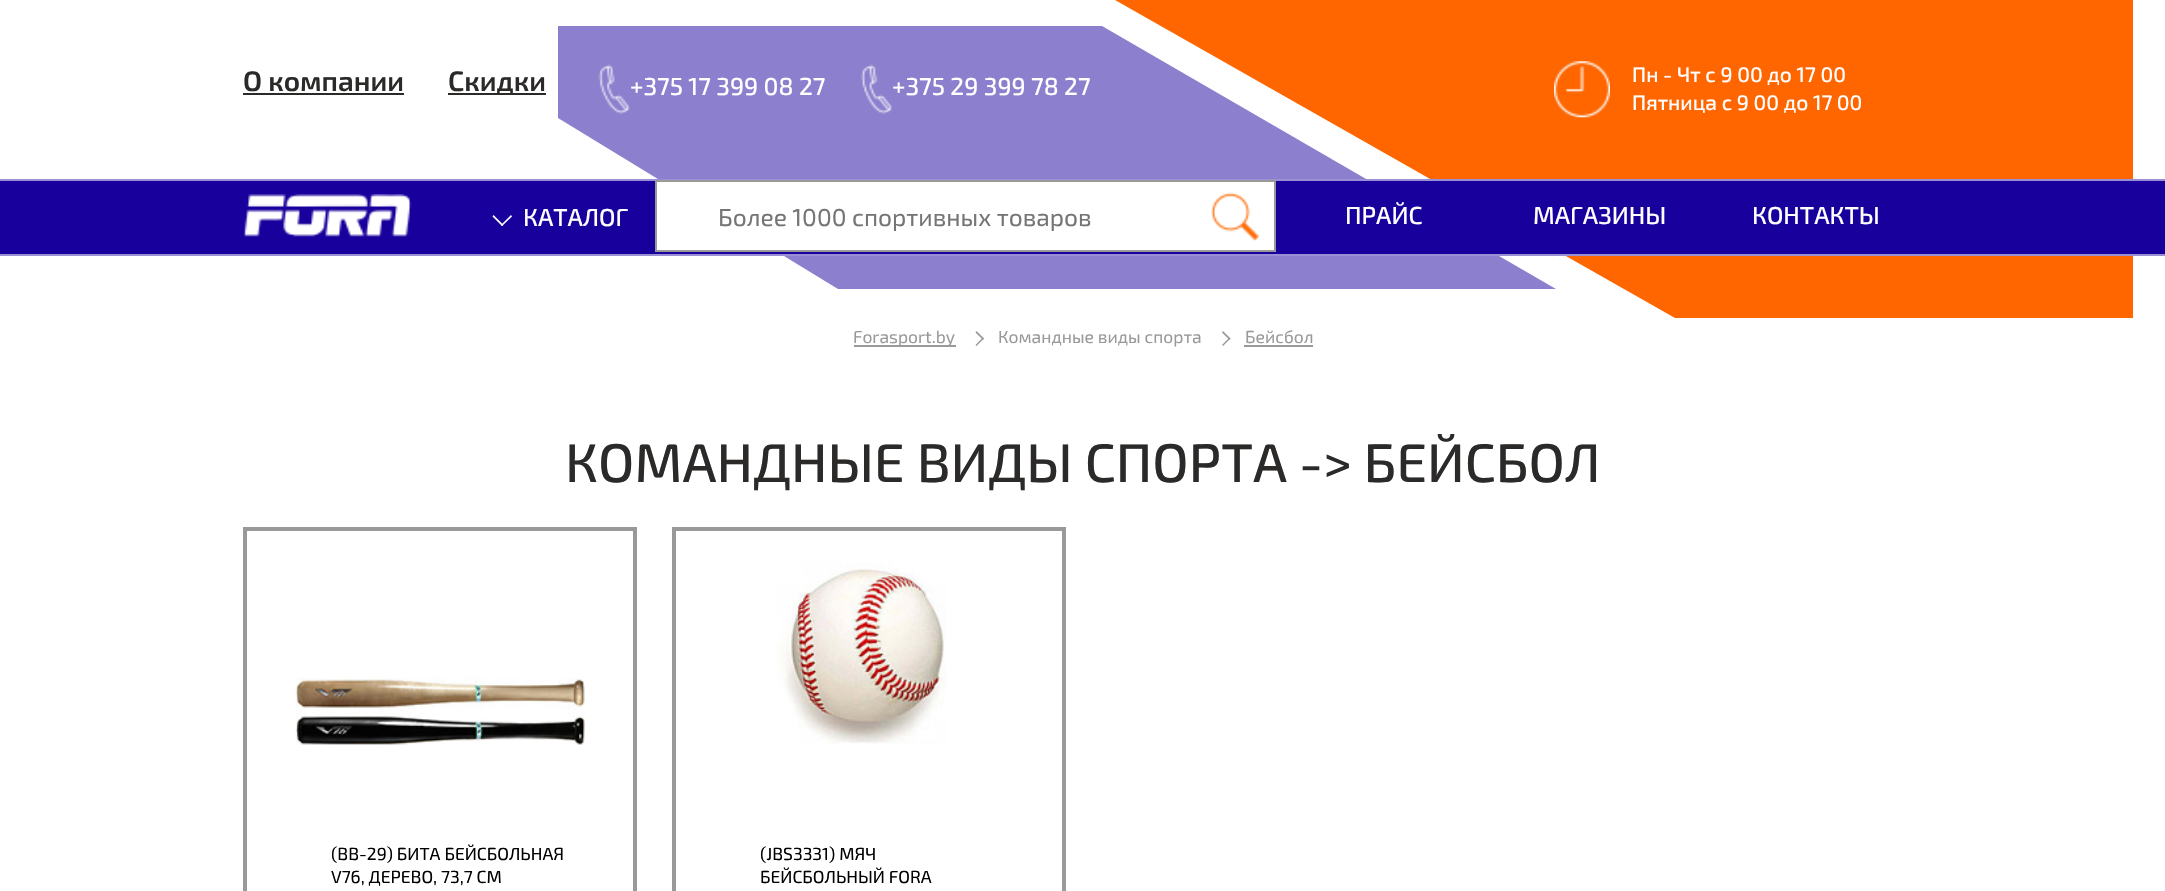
void draw(SkCanvas* canvas) {
    SkPaint paint;
    paint.setAntiAlias(true);
    canvas->clear(0xFFFFFFFF);
    paint.setColor(0xFF8C80CE);
    canvas->drawPath(SkPathBuilder().moveTo(558, 26).lineTo(558, 118).lineTo(838, 289).lineTo(1556, 289).lineTo(1102, 26).close().detach(), paint);
    paint.setColor(0xFFFF6600);
    canvas->drawPath(SkPathBuilder().moveTo(1115, 0).lineTo(2133, 0).lineTo(2133, 318).lineTo(1675, 318).close().detach(), paint);
    SkFont font1(fontMgr->matchFamilyStyle("Exo 2", SkFontStyle(600, SkFontStyle::kNormal_Width, SkFontStyle::kUpright_Slant)), 28);
    font1.setSubpixel(true);
    paint.setColor(0xFF2B2A29);
    canvas->drawString("О компании", 243, 91, font1, paint);
    canvas->drawRect(SkRect::MakeXYWH(243, 93, 161, 2), paint);
    canvas->drawRect(SkRect::MakeXYWH(448, 93, 98, 2), paint);
    canvas->drawString("Скидки", 448, 91, font1, paint);
    canvas->drawImageRect(SkImages::DeferredFromEncodedData(SkData::MakeFromFileName("img1.png")), SkRect::MakeXYWH(598, 64, 32, 50), SkSamplingOptions());
    SkFont font2(fontMgr->matchFamilyStyle("Exo 2", SkFontStyle(500, SkFontStyle::kNormal_Width, SkFontStyle::kUpright_Slant)), 24.5f);
    font2.setSubpixel(true);
    paint.setColor(0xFFFFFFFF);
    canvas->drawString("+375 17 399 08 27", 630, 95, font2, paint);
    canvas->drawImageRect(SkImages::DeferredFromEncodedData(SkData::MakeFromFileName("img2.png")), SkRect::MakeXYWH(861, 64, 32, 50), SkSamplingOptions());
    canvas->drawString("+375 29 399 78 27", 892, 95, font2, paint);
    canvas->drawImageRect(SkImages::DeferredFromEncodedData(SkData::MakeFromFileName("img3.png")), SkRect::MakeXYWH(1554, 61, 56, 57), SkSamplingOptions());
    SkFont font3(fontMgr->matchFamilyStyle("Exo 2", SkFontStyle(500, SkFontStyle::kNormal_Width, SkFontStyle::kUpright_Slant)), 21);
    font3.setSubpixel(true);
    canvas->drawString("Пн - Чт с 9 00 до 17 00", 1632, 82, font3, paint);
    canvas->drawString("Пятница с 9 00 до 17 00", 1632, 110, font3, paint);
    paint.setColor(0xFF18009C);
    canvas->drawRect(SkRect::MakeXYWH(0, 181, 2165, 73), paint);
    paint.setColor(0xFF9A8FD4);
    canvas->drawRect(SkRect::MakeXYWH(0, 179, 2165, 2), paint);
    canvas->drawRect(SkRect::MakeXYWH(0, 254, 2165, 2), paint);
    canvas->drawImageRect(SkImages::DeferredFromEncodedData(SkData::MakeFromFileName("img4.png")), SkRect::MakeXYWH(243, 194, 169, 43), SkSamplingOptions());
    paint.setColor(0xFFFFFFFF);
    canvas->drawPath(SkPathBuilder().moveTo(511, 215).lineTo(512, 216.5f).lineTo(502, 226).lineTo(501, 225).close().detach(), paint);
    canvas->drawPath(SkPathBuilder().moveTo(493.5f, 215).lineTo(503.5f, 225).lineTo(502, 226).lineTo(492.5f, 216.5f).close().detach(), paint);
    canvas->drawString("КАТАЛОГ", 523, 226, font2, paint);
    canvas->drawRect(SkRect::MakeXYWH(656, 181, 619, 70), paint);
    paint.setStyle(SkPaint::kStroke_Style);
    paint.setStrokeWidth(2);
    paint.setColor(0xFF999999);
    canvas->drawRect(SkRect::MakeXYWH(656, 181, 619, 70), paint);
    SkFont font4(fontMgr->matchFamilyStyle("Exo 2", SkFontStyle::Normal()), 24.5f);
    font4.setSubpixel(true);
    paint.setStyle(SkPaint::kFill_Style);
    paint.setColor(0xFF757575);
    canvas->drawString("Более 1000 спортивных товаров", 718, 226, font4, paint);
    canvas->drawImageRect(SkImages::DeferredFromEncodedData(SkData::MakeFromFileName("img5.png")), SkRect::MakeXYWH(1211, 192, 48, 49), SkSamplingOptions());
    paint.setColor(0xFFFFFFFF);
    canvas->drawString("ПРАЙС", 1345, 224, font2, paint);
    canvas->drawString("МАГАЗИНЫ", 1533, 224, font2, paint);
    canvas->drawString("КОНТАКТЫ", 1752, 224, font2, paint);
    paint.setColor(0xFF999999);
    canvas->drawRect(SkRect::MakeXYWH(854, 345, 102, 2), paint);
    SkFont font5(fontMgr->matchFamilyStyle("Exo 2", SkFontStyle::Normal()), 17.5f);
    font5.setSubpixel(true);
    canvas->drawString("Forasport.by", 853, 343, font5, paint);
    canvas->drawPath(SkPathBuilder().moveTo(975.5f, 332.5f).lineTo(976.5f, 331).lineTo(984, 338.5f).lineTo(983, 340).close().detach(), paint);
    canvas->drawPath(SkPathBuilder().moveTo(975.5f, 345).lineTo(983, 337.5f).lineTo(984, 338.5f).lineTo(976.5f, 346).close().detach(), paint);
    canvas->drawString("Командные виды спорта", 998, 343, font5, paint);
    canvas->drawPath(SkPathBuilder().moveTo(1222, 332.5f).lineTo(1223, 331).lineTo(1230.5f, 338.5f).lineTo(1229.5f, 340).close().detach(), paint);
    canvas->drawPath(SkPathBuilder().moveTo(1222, 345).lineTo(1229.5f, 337.5f).lineTo(1230.5f, 338.5f).lineTo(1223, 346).close().detach(), paint);
    canvas->drawString("Бейсбол", 1245, 343, font5, paint);
    canvas->drawRect(SkRect::MakeXYWH(1244, 345, 69, 2), paint);
    SkFont font6(fontMgr->matchFamilyStyle("Exo 2", SkFontStyle(500, SkFontStyle::kNormal_Width, SkFontStyle::kUpright_Slant)), 54.25f);
    font6.setSubpixel(true);
    paint.setColor(0xFF2B2A29);
    canvas->drawString("КОМАНДНЫЕ ВИДЫ СПОРТА -> БЕЙСБОЛ", 565, 482, font6, paint);
    paint.setStyle(SkPaint::kStroke_Style);
    paint.setStrokeWidth(4);
    paint.setColor(0xFF999999);
    canvas->drawRect(SkRect::MakeXYWH(245, 529, 390, 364), paint);
    canvas->drawImageRect(SkImages::DeferredFromEncodedData(SkData::MakeFromFileName("img6.png")), SkRect::MakeXYWH(295, 677, 290, 68), SkSamplingOptions());
    paint.setStyle(SkPaint::kFill_Style);
    paint.setColor(0xFF000000);
    canvas->drawString("(BB-29) БИТА БЕЙСБОЛЬНАЯ", 331, 860, font5, paint);
    canvas->drawString("V76, ДЕРЕВО, 73,7 СМ", 331, 883, font5, paint);
    paint.setStyle(SkPaint::kStroke_Style);
    paint.setColor(0xFF999999);
    canvas->drawRect(SkRect::MakeXYWH(674, 529, 390, 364), paint);
    canvas->drawImageRect(SkImages::DeferredFromEncodedData(SkData::MakeFromFileName("img7.png")), SkRect::MakeXYWH(777, 562, 170, 183), SkSamplingOptions());
    paint.setStyle(SkPaint::kFill_Style);
    paint.setColor(0xFF000000);
    canvas->drawString("(JBS3331) МЯЧ", 760, 860, font5, paint);
    canvas->drawString("БЕЙСБОЛЬНЫЙ FORA", 760, 883, font5, paint);
}
